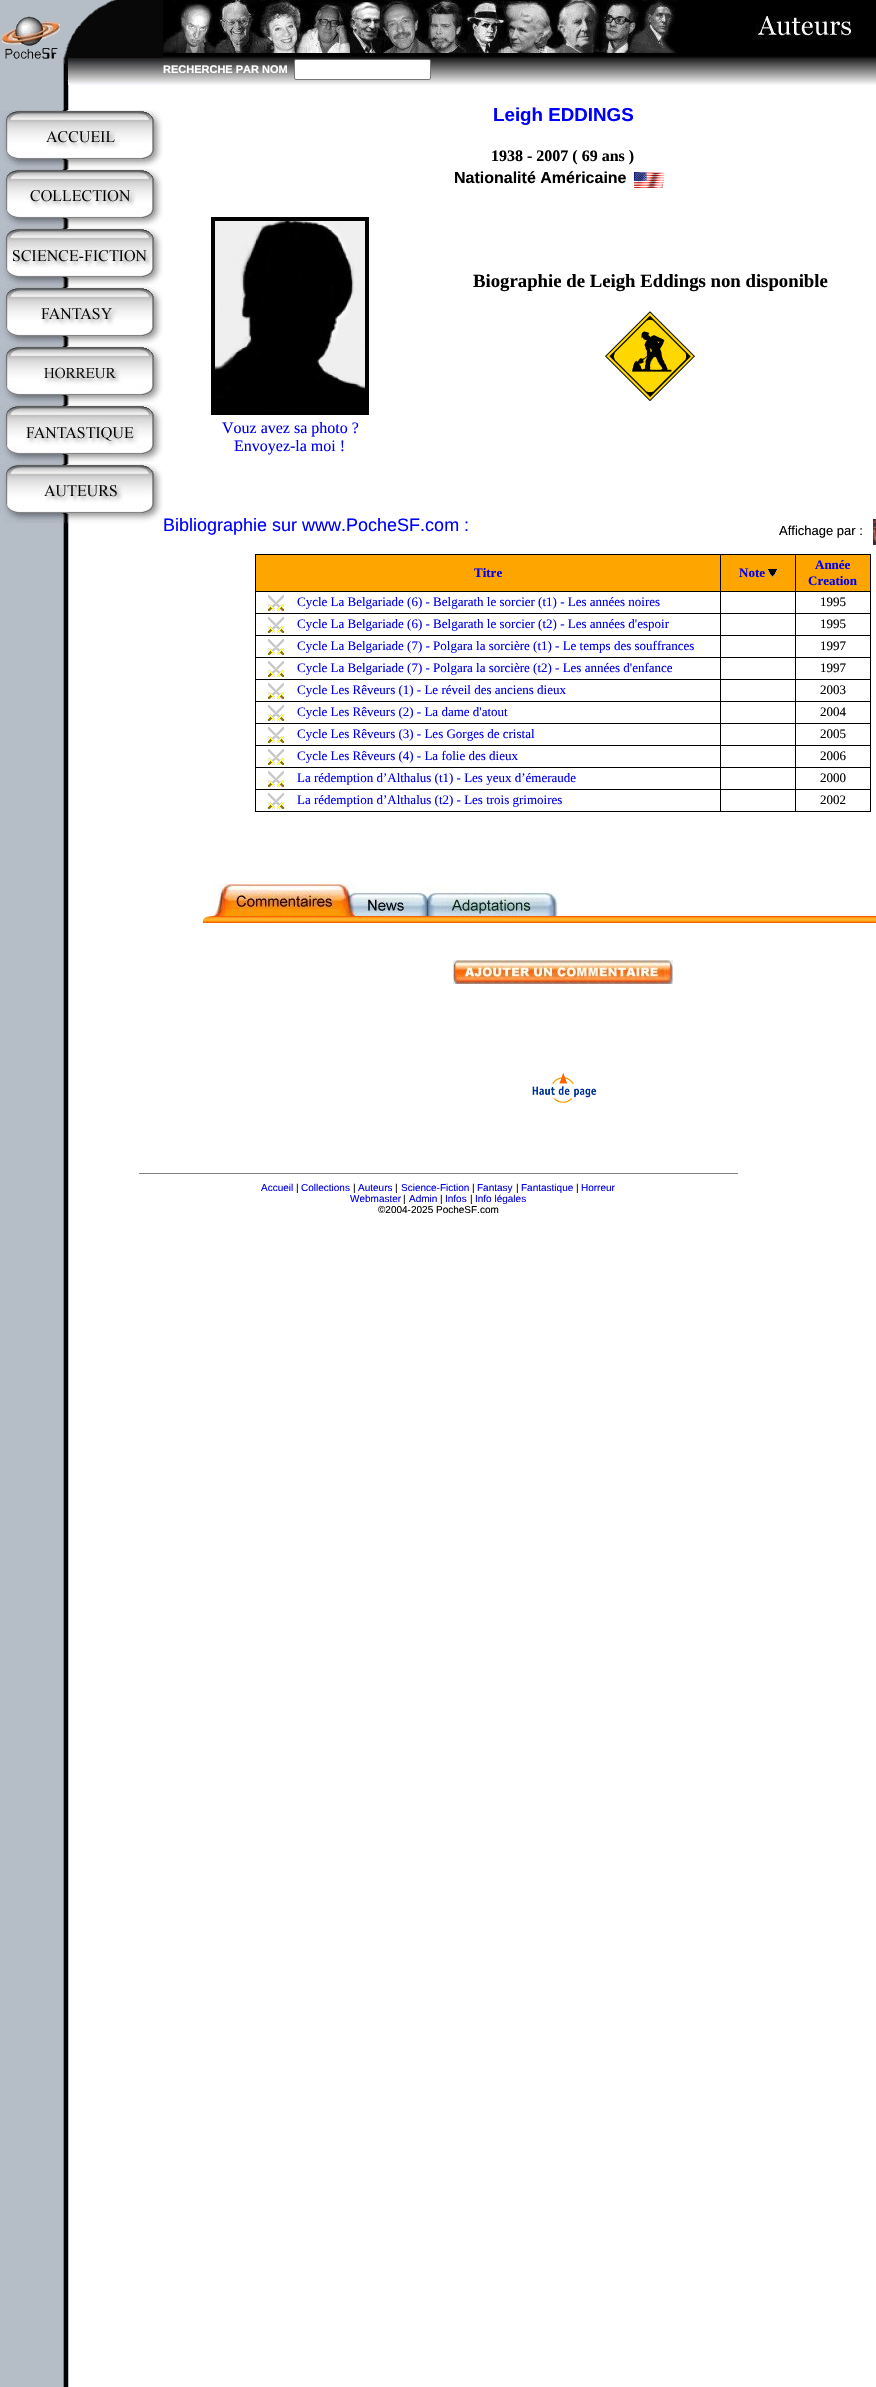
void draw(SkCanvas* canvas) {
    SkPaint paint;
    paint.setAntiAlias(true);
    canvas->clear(0xFFFFFFFF);
    canvas->drawImageRect(SkImages::DeferredFromEncodedData(SkData::MakeFromFileName("img1.png")), SkRect::MakeXYWH(0, 0, 69, 2387), SkSamplingOptions());
    canvas->drawImageRect(SkImages::DeferredFromEncodedData(SkData::MakeFromFileName("img2.png")), SkRect::MakeXYWH(1, 0, 162, 85), SkSamplingOptions());
    canvas->drawImageRect(SkImages::DeferredFromEncodedData(SkData::MakeFromFileName("img3.png")), SkRect::MakeXYWH(0, 110, 163, 50), SkSamplingOptions());
    canvas->drawImageRect(SkImages::DeferredFromEncodedData(SkData::MakeFromFileName("img4.png")), SkRect::MakeXYWH(5, 160, 154, 9), SkSamplingOptions());
    canvas->drawImageRect(SkImages::DeferredFromEncodedData(SkData::MakeFromFileName("img5.png")), SkRect::MakeXYWH(0, 169, 163, 50), SkSamplingOptions());
    canvas->drawImageRect(SkImages::DeferredFromEncodedData(SkData::MakeFromFileName("img4.png")), SkRect::MakeXYWH(5, 219, 154, 9), SkSamplingOptions());
    canvas->drawImageRect(SkImages::DeferredFromEncodedData(SkData::MakeFromFileName("img6.png")), SkRect::MakeXYWH(0, 228, 163, 50), SkSamplingOptions());
    canvas->drawImageRect(SkImages::DeferredFromEncodedData(SkData::MakeFromFileName("img4.png")), SkRect::MakeXYWH(5, 278, 154, 9), SkSamplingOptions());
    canvas->drawImageRect(SkImages::DeferredFromEncodedData(SkData::MakeFromFileName("img7.png")), SkRect::MakeXYWH(0, 287, 163, 50), SkSamplingOptions());
    canvas->drawImageRect(SkImages::DeferredFromEncodedData(SkData::MakeFromFileName("img4.png")), SkRect::MakeXYWH(5, 337, 154, 9), SkSamplingOptions());
    canvas->drawImageRect(SkImages::DeferredFromEncodedData(SkData::MakeFromFileName("img8.png")), SkRect::MakeXYWH(0, 346, 163, 50), SkSamplingOptions());
    canvas->drawImageRect(SkImages::DeferredFromEncodedData(SkData::MakeFromFileName("img4.png")), SkRect::MakeXYWH(5, 396, 154, 9), SkSamplingOptions());
    canvas->drawImageRect(SkImages::DeferredFromEncodedData(SkData::MakeFromFileName("img9.png")), SkRect::MakeXYWH(0, 405, 163, 50), SkSamplingOptions());
    canvas->drawImageRect(SkImages::DeferredFromEncodedData(SkData::MakeFromFileName("img4.png")), SkRect::MakeXYWH(5, 455, 154, 9), SkSamplingOptions());
    canvas->drawImageRect(SkImages::DeferredFromEncodedData(SkData::MakeFromFileName("img10.png")), SkRect::MakeXYWH(0, 464, 163, 50), SkSamplingOptions());
    canvas->drawImageRect(SkImages::DeferredFromEncodedData(SkData::MakeFromFileName("img4.png")), SkRect::MakeXYWH(5, 514, 154, 9), SkSamplingOptions());
    paint.setColor(0xFF000000);
    canvas->drawRect(SkRect::MakeXYWH(163, 0, 713, 56), paint);
    canvas->drawImageRect(SkImages::DeferredFromEncodedData(SkData::MakeFromFileName("img11.png")), SkRect::MakeXYWH(163, 0, 688, 53), SkSamplingOptions());
    canvas->drawImageRect(SkImages::DeferredFromEncodedData(SkData::MakeFromFileName("img12.png")), SkRect::MakeXYWH(163, 56, 131, 29), SkSamplingOptions());
    SkFont font1(fontMgr->matchFamilyStyle("Liberation Sans", SkFontStyle::Bold()), 11);
    font1.setSubpixel(true);
    paint.setColor(0xFFFFFFFF);
    canvas->drawString("RECHERCHE PAR NOM", 163, 73, font1, paint);
    canvas->drawImageRect(SkImages::DeferredFromEncodedData(SkData::MakeFromFileName("img13.png")), SkRect::MakeXYWH(294, 56, 582, 29), SkSamplingOptions());
    canvas->drawRoundRect(SkRect::MakeXYWH(294.5f, 59.5f, 136, 20), 1.5f, 1.5f, paint);
    paint.setStyle(SkPaint::kStroke_Style);
    paint.setStrokeWidth(1);
    paint.setColor(0xFF767676);
    canvas->drawRoundRect(SkRect::MakeXYWH(294.5f, 59.5f, 136, 20), 1.5f, 1.5f, paint);
    SkFont font2(fontMgr->matchFamilyStyle("Liberation Sans", SkFontStyle::Bold()), 18.75f);
    font2.setSubpixel(true);
    paint.setStyle(SkPaint::kFill_Style);
    paint.setColor(0xFF0000FF);
    canvas->drawString("Leigh EDDINGS", 493, 121, font2, paint);
    SkFont font3(fontMgr->matchFamilyStyle("Liberation Serif", SkFontStyle::Bold()), 16);
    font3.setSubpixel(true);
    paint.setColor(0xFF000000);
    canvas->drawString("1938 - 2007 ( 69 ans )", 491, 161, font3, paint);
    SkFont font4(fontMgr->matchFamilyStyle("Liberation Sans", SkFontStyle::Bold()), 16);
    font4.setSubpixel(true);
    canvas->drawString("Nationalité Américaine", 454, 183, font4, paint);
    canvas->drawImageRect(SkImages::DeferredFromEncodedData(SkData::MakeFromFileName("img14.png")), SkRect::MakeXYWH(634, 172, 31, 16), SkSamplingOptions());
    SkFont font5(fontMgr->matchFamilyStyle("Liberation Serif", SkFontStyle::Bold()), 18.75f);
    font5.setSubpixel(true);
    canvas->drawString("Biographie de Leigh Eddings non disponible", 473, 287, font5, paint);
    canvas->drawImageRect(SkImages::DeferredFromEncodedData(SkData::MakeFromFileName("img15.png")), SkRect::MakeXYWH(605, 311, 90, 90), SkSamplingOptions());
    paint.setStyle(SkPaint::kStroke_Style);
    paint.setStrokeWidth(4);
    canvas->drawRect(SkRect::MakeXYWH(213, 219, 154, 194), paint);
    canvas->drawImageRect(SkImages::DeferredFromEncodedData(SkData::MakeFromFileName("img16.png")), SkRect::MakeXYWH(215, 221, 150, 190), SkSamplingOptions());
    SkFont font6(fontMgr->matchFamilyStyle("Liberation Serif", SkFontStyle::Normal()), 16);
    font6.setSubpixel(true);
    paint.setStyle(SkPaint::kFill_Style);
    paint.setColor(0xFF0000EE);
    canvas->drawString("Vouz avez sa photo ?", 222, 433, font6, paint);
    canvas->drawString("Envoyez-la moi !", 234, 451, font6, paint);
    SkFont font7(fontMgr->matchFamilyStyle("Liberation Sans", SkFontStyle::Normal()), 18);
    font7.setSubpixel(true);
    paint.setColor(0xFF0000FF);
    canvas->drawString("Bibliographie sur www.PocheSF.com :", 163, 531, font7, paint);
    SkFont font8(fontMgr->matchFamilyStyle("Liberation Sans", SkFontStyle::Normal()), 13);
    font8.setSubpixel(true);
    paint.setColor(0xFF000000);
    canvas->drawString("Affichage par :", 779, 535, font8, paint);
    canvas->drawImageRect(SkImages::DeferredFromEncodedData(SkData::MakeFromFileName("img17.png")), SkRect::MakeXYWH(873, 519, 3, 26), SkSamplingOptions());
    paint.setColor(0xFFFFA500);
    canvas->drawRect(SkRect::MakeXYWH(256, 555, 614, 36), paint);
    paint.setColor(0xFF000000);
    canvas->drawRect(SkRect::MakeXYWH(795, 554, 76, 1), paint);
    canvas->drawRect(SkRect::MakeXYWH(795, 591, 76, 1), paint);
    canvas->drawRect(SkRect::MakeXYWH(795, 613, 76, 1), paint);
    canvas->drawRect(SkRect::MakeXYWH(795, 635, 76, 1), paint);
    canvas->drawRect(SkRect::MakeXYWH(795, 657, 76, 1), paint);
    canvas->drawRect(SkRect::MakeXYWH(795, 679, 76, 1), paint);
    canvas->drawRect(SkRect::MakeXYWH(795, 701, 76, 1), paint);
    canvas->drawRect(SkRect::MakeXYWH(795, 723, 76, 1), paint);
    canvas->drawRect(SkRect::MakeXYWH(795, 745, 76, 1), paint);
    canvas->drawRect(SkRect::MakeXYWH(795, 767, 76, 1), paint);
    canvas->drawRect(SkRect::MakeXYWH(795, 789, 76, 1), paint);
    canvas->drawRect(SkRect::MakeXYWH(870, 789, 1, 23), paint);
    canvas->drawRect(SkRect::MakeXYWH(795, 811, 76, 1), paint);
    canvas->drawRect(SkRect::MakeXYWH(795, 789, 1, 23), paint);
    canvas->drawRect(SkRect::MakeXYWH(720, 789, 76, 1), paint);
    canvas->drawRect(SkRect::MakeXYWH(795, 767, 1, 23), paint);
    canvas->drawRect(SkRect::MakeXYWH(720, 767, 76, 1), paint);
    canvas->drawRect(SkRect::MakeXYWH(795, 745, 1, 23), paint);
    canvas->drawRect(SkRect::MakeXYWH(720, 745, 76, 1), paint);
    canvas->drawRect(SkRect::MakeXYWH(795, 723, 1, 23), paint);
    canvas->drawRect(SkRect::MakeXYWH(720, 723, 76, 1), paint);
    canvas->drawRect(SkRect::MakeXYWH(795, 701, 1, 23), paint);
    canvas->drawRect(SkRect::MakeXYWH(720, 701, 76, 1), paint);
    canvas->drawRect(SkRect::MakeXYWH(795, 679, 1, 23), paint);
    canvas->drawRect(SkRect::MakeXYWH(720, 679, 76, 1), paint);
    canvas->drawRect(SkRect::MakeXYWH(795, 657, 1, 23), paint);
    canvas->drawRect(SkRect::MakeXYWH(720, 657, 76, 1), paint);
    canvas->drawRect(SkRect::MakeXYWH(795, 635, 1, 23), paint);
    canvas->drawRect(SkRect::MakeXYWH(720, 635, 76, 1), paint);
    canvas->drawRect(SkRect::MakeXYWH(795, 613, 1, 23), paint);
    canvas->drawRect(SkRect::MakeXYWH(720, 613, 76, 1), paint);
    canvas->drawRect(SkRect::MakeXYWH(795, 591, 1, 23), paint);
    canvas->drawRect(SkRect::MakeXYWH(720, 591, 76, 1), paint);
    canvas->drawRect(SkRect::MakeXYWH(795, 554, 1, 38), paint);
    canvas->drawRect(SkRect::MakeXYWH(720, 554, 76, 1), paint);
    canvas->drawRect(SkRect::MakeXYWH(720, 811, 76, 1), paint);
    canvas->drawRect(SkRect::MakeXYWH(720, 789, 1, 23), paint);
    canvas->drawRect(SkRect::MakeXYWH(255, 789, 466, 1), paint);
    canvas->drawRect(SkRect::MakeXYWH(720, 767, 1, 23), paint);
    canvas->drawRect(SkRect::MakeXYWH(255, 767, 466, 1), paint);
    canvas->drawRect(SkRect::MakeXYWH(720, 745, 1, 23), paint);
    canvas->drawRect(SkRect::MakeXYWH(255, 745, 466, 1), paint);
    canvas->drawRect(SkRect::MakeXYWH(720, 723, 1, 23), paint);
    canvas->drawRect(SkRect::MakeXYWH(255, 723, 466, 1), paint);
    canvas->drawRect(SkRect::MakeXYWH(720, 701, 1, 23), paint);
    canvas->drawRect(SkRect::MakeXYWH(255, 701, 466, 1), paint);
    canvas->drawRect(SkRect::MakeXYWH(720, 679, 1, 23), paint);
    canvas->drawRect(SkRect::MakeXYWH(255, 679, 466, 1), paint);
    canvas->drawRect(SkRect::MakeXYWH(720, 657, 1, 23), paint);
    canvas->drawRect(SkRect::MakeXYWH(255, 657, 466, 1), paint);
    canvas->drawRect(SkRect::MakeXYWH(720, 635, 1, 23), paint);
    canvas->drawRect(SkRect::MakeXYWH(255, 635, 466, 1), paint);
    canvas->drawRect(SkRect::MakeXYWH(720, 613, 1, 23), paint);
    canvas->drawRect(SkRect::MakeXYWH(255, 613, 466, 1), paint);
    canvas->drawRect(SkRect::MakeXYWH(720, 591, 1, 23), paint);
    canvas->drawRect(SkRect::MakeXYWH(255, 591, 466, 1), paint);
    canvas->drawRect(SkRect::MakeXYWH(720, 554, 1, 38), paint);
    canvas->drawRect(SkRect::MakeXYWH(255, 554, 466, 1), paint);
    canvas->drawRect(SkRect::MakeXYWH(255, 811, 466, 1), paint);
    canvas->drawRect(SkRect::MakeXYWH(255, 789, 1, 23), paint);
    canvas->drawRect(SkRect::MakeXYWH(255, 767, 1, 23), paint);
    canvas->drawRect(SkRect::MakeXYWH(255, 745, 1, 23), paint);
    canvas->drawRect(SkRect::MakeXYWH(255, 723, 1, 23), paint);
    canvas->drawRect(SkRect::MakeXYWH(255, 701, 1, 23), paint);
    canvas->drawRect(SkRect::MakeXYWH(255, 679, 1, 23), paint);
    canvas->drawRect(SkRect::MakeXYWH(255, 657, 1, 23), paint);
    canvas->drawRect(SkRect::MakeXYWH(255, 635, 1, 23), paint);
    canvas->drawRect(SkRect::MakeXYWH(255, 613, 1, 23), paint);
    canvas->drawRect(SkRect::MakeXYWH(255, 591, 1, 23), paint);
    canvas->drawRect(SkRect::MakeXYWH(255, 554, 1, 38), paint);
    SkFont font9(fontMgr->matchFamilyStyle("Liberation Serif", SkFontStyle::Bold()), 13);
    font9.setSubpixel(true);
    paint.setColor(0xFF0000EE);
    canvas->drawString("Titre", 474, 577, font9, paint);
    canvas->drawString("Note", 739, 577, font9, paint);
    canvas->drawImageRect(SkImages::DeferredFromEncodedData(SkData::MakeFromFileName("img18.png")), SkRect::MakeXYWH(768, 569, 9, 8), SkSamplingOptions());
    paint.setColor(0xFF000000);
    canvas->drawRect(SkRect::MakeXYWH(870, 767, 1, 23), paint);
    canvas->drawRect(SkRect::MakeXYWH(870, 745, 1, 23), paint);
    canvas->drawRect(SkRect::MakeXYWH(870, 723, 1, 23), paint);
    canvas->drawRect(SkRect::MakeXYWH(870, 701, 1, 23), paint);
    canvas->drawRect(SkRect::MakeXYWH(870, 679, 1, 23), paint);
    canvas->drawRect(SkRect::MakeXYWH(870, 657, 1, 23), paint);
    canvas->drawRect(SkRect::MakeXYWH(870, 635, 1, 23), paint);
    canvas->drawRect(SkRect::MakeXYWH(870, 613, 1, 23), paint);
    canvas->drawRect(SkRect::MakeXYWH(870, 591, 1, 23), paint);
    canvas->drawRect(SkRect::MakeXYWH(870, 554, 1, 38), paint);
    paint.setColor(0xFF0000EE);
    canvas->drawString("Année", 815, 569, font9, paint);
    canvas->drawString("Creation", 808, 585, font9, paint);
    canvas->drawImageRect(SkImages::DeferredFromEncodedData(SkData::MakeFromFileName("img19.png")), SkRect::MakeXYWH(268, 595, 16, 16), SkSamplingOptions());
    SkFont font10(fontMgr->matchFamilyStyle("Liberation Serif", SkFontStyle::Normal()), 13);
    font10.setSubpixel(true);
    canvas->drawString("Cycle La Belgariade (6) - Belgarath le sorcier (t1) - Les années noires", 297, 606, font10, paint);
    paint.setColor(0xFF000000);
    canvas->drawString("1995", 820, 606, font10, paint);
    canvas->drawImageRect(SkImages::DeferredFromEncodedData(SkData::MakeFromFileName("img19.png")), SkRect::MakeXYWH(268, 617, 16, 16), SkSamplingOptions());
    paint.setColor(0xFF0000EE);
    canvas->drawString("Cycle La Belgariade (6) - Belgarath le sorcier (t2) - Les années d'espoir", 297, 628, font10, paint);
    paint.setColor(0xFF000000);
    canvas->drawString("1995", 820, 628, font10, paint);
    canvas->drawImageRect(SkImages::DeferredFromEncodedData(SkData::MakeFromFileName("img19.png")), SkRect::MakeXYWH(268, 639, 16, 16), SkSamplingOptions());
    paint.setColor(0xFF0000EE);
    canvas->drawString("Cycle La Belgariade (7) - Polgara la sorcière (t1) - Le temps des souffrances", 297, 650, font10, paint);
    paint.setColor(0xFF000000);
    canvas->drawString("1997", 820, 650, font10, paint);
    canvas->drawImageRect(SkImages::DeferredFromEncodedData(SkData::MakeFromFileName("img19.png")), SkRect::MakeXYWH(268, 661, 16, 16), SkSamplingOptions());
    paint.setColor(0xFF0000EE);
    canvas->drawString("Cycle La Belgariade (7) - Polgara la sorcière (t2) - Les années d'enfance", 297, 672, font10, paint);
    paint.setColor(0xFF000000);
    canvas->drawString("1997", 820, 672, font10, paint);
    canvas->drawImageRect(SkImages::DeferredFromEncodedData(SkData::MakeFromFileName("img19.png")), SkRect::MakeXYWH(268, 683, 16, 16), SkSamplingOptions());
    paint.setColor(0xFF0000EE);
    canvas->drawString("Cycle Les Rêveurs (1) - Le réveil des anciens dieux", 297, 694, font10, paint);
    paint.setColor(0xFF000000);
    canvas->drawString("2003", 820, 694, font10, paint);
    canvas->drawImageRect(SkImages::DeferredFromEncodedData(SkData::MakeFromFileName("img19.png")), SkRect::MakeXYWH(268, 705, 16, 16), SkSamplingOptions());
    paint.setColor(0xFF0000EE);
    canvas->drawString("Cycle Les Rêveurs (2) - La dame d'atout", 297, 716, font10, paint);
    paint.setColor(0xFF000000);
    canvas->drawString("2004", 820, 716, font10, paint);
    canvas->drawImageRect(SkImages::DeferredFromEncodedData(SkData::MakeFromFileName("img19.png")), SkRect::MakeXYWH(268, 727, 16, 16), SkSamplingOptions());
    paint.setColor(0xFF0000EE);
    canvas->drawString("Cycle Les Rêveurs (3) - Les Gorges de cristal", 297, 738, font10, paint);
    paint.setColor(0xFF000000);
    canvas->drawString("2005", 820, 738, font10, paint);
    canvas->drawImageRect(SkImages::DeferredFromEncodedData(SkData::MakeFromFileName("img19.png")), SkRect::MakeXYWH(268, 749, 16, 16), SkSamplingOptions());
    paint.setColor(0xFF0000EE);
    canvas->drawString("Cycle Les Rêveurs (4) - La folie des dieux", 297, 760, font10, paint);
    paint.setColor(0xFF000000);
    canvas->drawString("2006", 820, 760, font10, paint);
    canvas->drawImageRect(SkImages::DeferredFromEncodedData(SkData::MakeFromFileName("img19.png")), SkRect::MakeXYWH(268, 771, 16, 16), SkSamplingOptions());
    paint.setColor(0xFF0000EE);
    canvas->drawString("La rédemption d’Althalus (t1) - Les yeux d’émeraude", 297, 782, font10, paint);
    paint.setColor(0xFF000000);
    canvas->drawString("2000", 820, 782, font10, paint);
    canvas->drawImageRect(SkImages::DeferredFromEncodedData(SkData::MakeFromFileName("img19.png")), SkRect::MakeXYWH(268, 793, 16, 16), SkSamplingOptions());
    paint.setColor(0xFF0000EE);
    canvas->drawString("La rédemption d’Althalus (t2) - Les trois grimoires", 297, 804, font10, paint);
    paint.setColor(0xFF000000);
    canvas->drawString("2002", 820, 804, font10, paint);
    canvas->drawImageRect(SkImages::DeferredFromEncodedData(SkData::MakeFromFileName("img20.png")), SkRect::MakeXYWH(213, 884, 349, 32), SkSamplingOptions());
    canvas->drawImageRect(SkImages::DeferredFromEncodedData(SkData::MakeFromFileName("img21.png")), SkRect::MakeXYWH(203, 916, 10, 7), SkSamplingOptions());
    canvas->drawImageRect(SkImages::DeferredFromEncodedData(SkData::MakeFromFileName("img22.png")), SkRect::MakeXYWH(213, 916, 663, 7), SkSamplingOptions());
    canvas->drawImageRect(SkImages::DeferredFromEncodedData(SkData::MakeFromFileName("img23.png")), SkRect::MakeXYWH(453, 960, 220, 24), SkSamplingOptions());
    canvas->drawImageRect(SkImages::DeferredFromEncodedData(SkData::MakeFromFileName("img24.png")), SkRect::MakeXYWH(532, 1073, 65, 30), SkSamplingOptions());
    paint.setColor(0xFF808080);
    canvas->drawRect(SkRect::MakeXYWH(139, 1173, 599, 1), paint);
    SkFont font11(fontMgr->matchFamilyStyle("Liberation Sans", SkFontStyle::Normal()), 10);
    font11.setSubpixel(true);
    paint.setColor(0xFF0000EE);
    canvas->drawString("Accueil", 261, 1191, font11, paint);
    paint.setColor(0xFF000000);
    canvas->drawString("|", 296, 1191, font11, paint);
    paint.setColor(0xFF0000EE);
    canvas->drawString("Collections", 301, 1191, font11, paint);
    paint.setColor(0xFF000000);
    canvas->drawString("|", 353, 1191, font11, paint);
    paint.setColor(0xFF0000EE);
    canvas->drawString("Auteurs", 358, 1191, font11, paint);
    paint.setColor(0xFF000000);
    canvas->drawString("|", 395, 1191, font11, paint);
    paint.setColor(0xFF0000EE);
    canvas->drawString("Science-Fiction", 401, 1191, font11, paint);
    paint.setColor(0xFF000000);
    canvas->drawString("|", 472, 1191, font11, paint);
    paint.setColor(0xFF0000EE);
    canvas->drawString("Fantasy", 477, 1191, font11, paint);
    paint.setColor(0xFF000000);
    canvas->drawString("|", 516, 1191, font11, paint);
    paint.setColor(0xFF0000EE);
    canvas->drawString("Fantastique", 521, 1191, font11, paint);
    paint.setColor(0xFF000000);
    canvas->drawString("|", 576, 1191, font11, paint);
    paint.setColor(0xFF0000EE);
    canvas->drawString("Horreur", 581, 1191, font11, paint);
    canvas->drawString("Webmaster", 350, 1202, font11, paint);
    paint.setColor(0xFF000000);
    canvas->drawString("|", 403, 1202, font11, paint);
    paint.setColor(0xFF0000EE);
    canvas->drawString("Admin", 409, 1202, font11, paint);
    paint.setColor(0xFF000000);
    canvas->drawString("|", 440, 1202, font11, paint);
    paint.setColor(0xFF0000EE);
    canvas->drawString("Infos", 445, 1202, font11, paint);
    paint.setColor(0xFF000000);
    canvas->drawString("|", 470, 1202, font11, paint);
    paint.setColor(0xFF0000EE);
    canvas->drawString("Info légales", 475, 1202, font11, paint);
    paint.setColor(0xFF000000);
    canvas->drawString("©2004-2025 PocheSF.com", 378, 1213, font11, paint);
}
